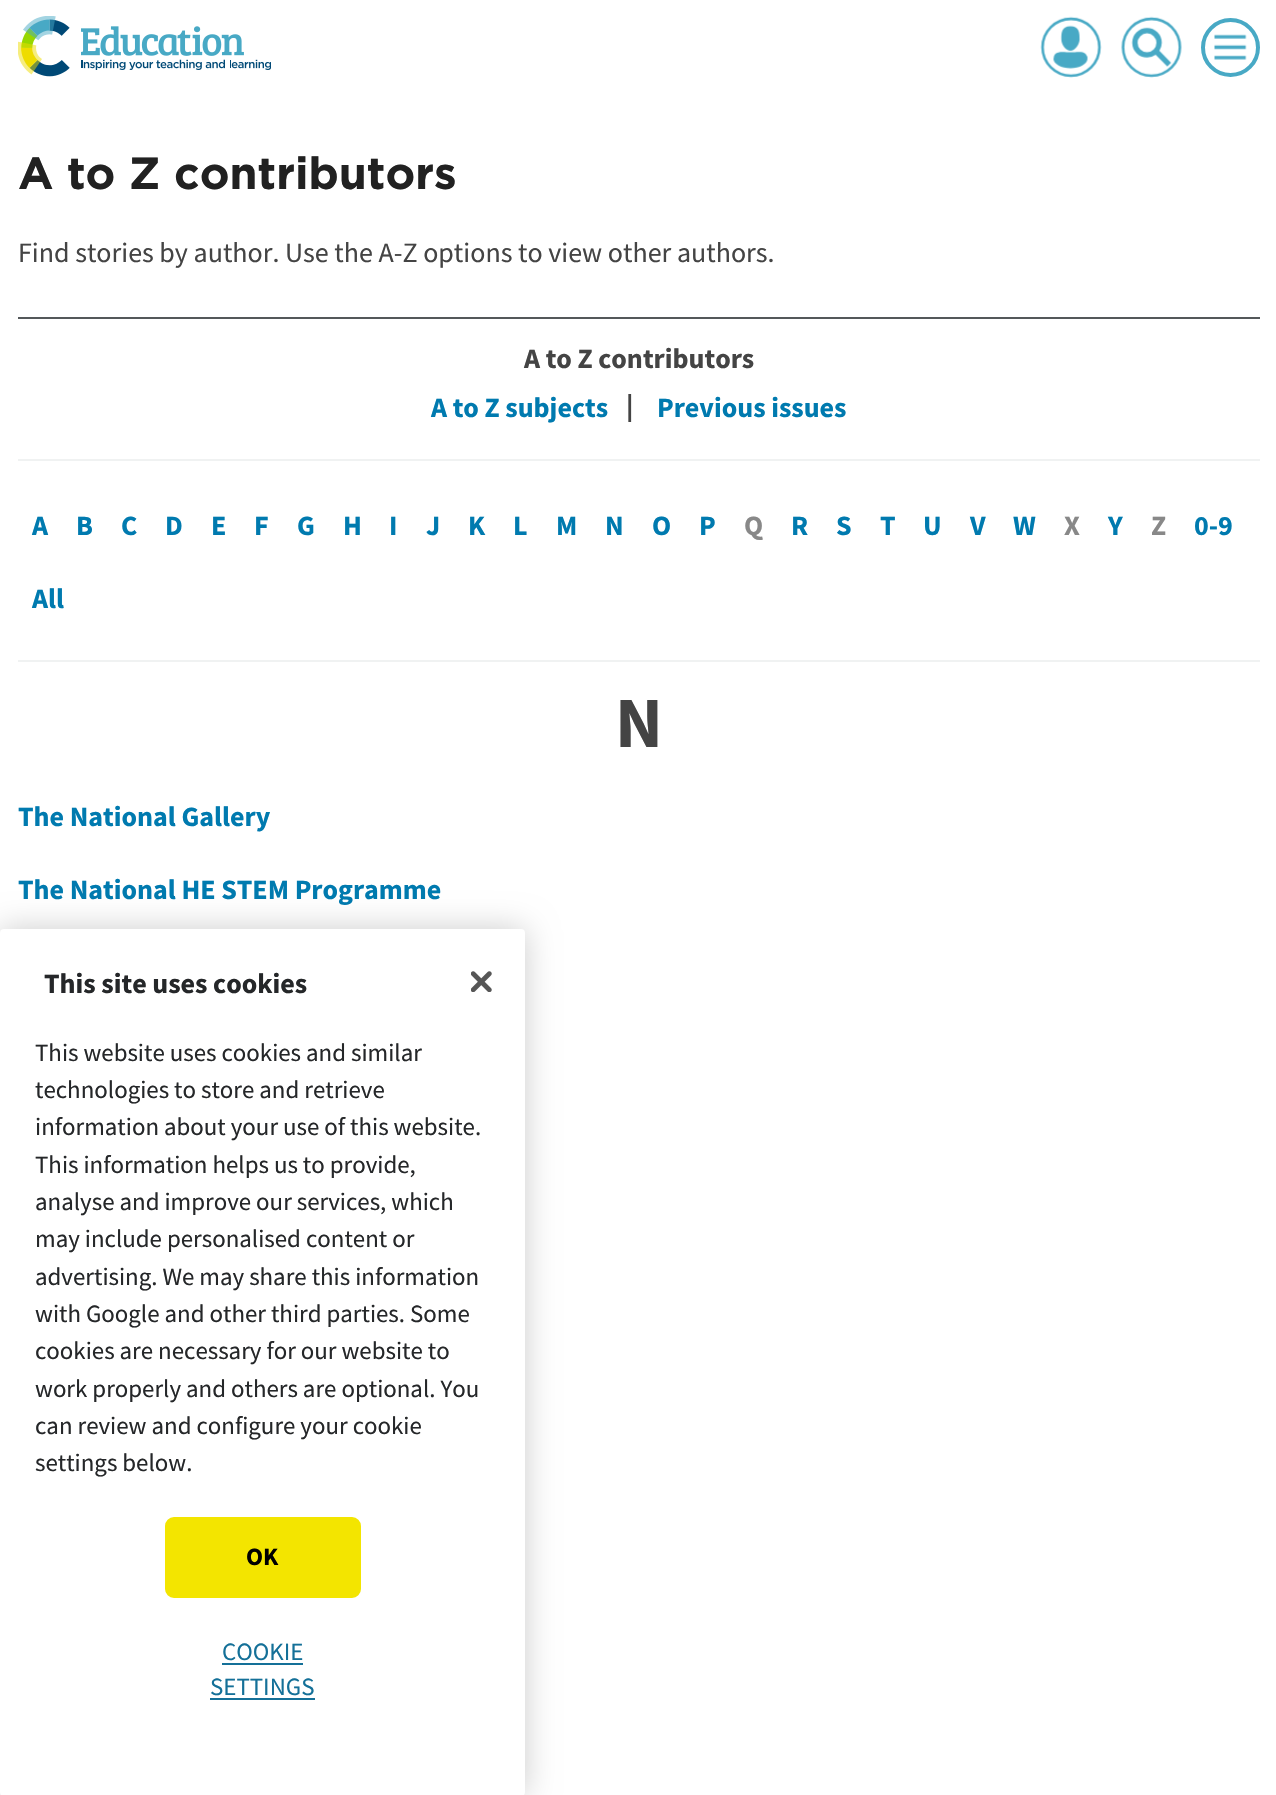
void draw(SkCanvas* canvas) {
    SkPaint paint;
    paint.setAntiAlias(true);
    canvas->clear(0xFFFFFFFF);
    canvas->drawImageRect(SkImages::DeferredFromEncodedData(SkData::MakeFromFileName("img1.png")), SkRect::MakeXYWH(18, 16, 52, 61), SkSamplingOptions());
    canvas->drawImageRect(SkImages::DeferredFromEncodedData(SkData::MakeFromFileName("img2.png")), SkRect::MakeXYWH(81, 26, 190, 44), SkSamplingOptions());
    canvas->drawImageRect(SkImages::DeferredFromEncodedData(SkData::MakeFromFileName("img3.png")), SkRect::MakeXYWH(1040, 16, 62, 62), SkSamplingOptions());
    canvas->drawImageRect(SkImages::DeferredFromEncodedData(SkData::MakeFromFileName("img4.png")), SkRect::MakeXYWH(1121, 16, 61, 62), SkSamplingOptions());
    paint.setStyle(SkPaint::kStroke_Style);
    paint.setStrokeWidth(4);
    paint.setColor(0xFF48A9C5);
    canvas->drawCircle(1230.5f, 47.5f, 27.5f, paint);
    canvas->drawImageRect(SkImages::DeferredFromEncodedData(SkData::MakeFromFileName("img5.png")), SkRect::MakeXYWH(1214, 34, 33, 26), SkSamplingOptions());
    SkFont font1(fontMgr->matchFamilyStyle("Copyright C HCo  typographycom", SkFontStyle::Normal()), 44.9f);
    font1.setSubpixel(true);
    paint.setStyle(SkPaint::kFill_Style);
    paint.setColor(0xFF212121);
    canvas->drawString("A to Z contributors", 18, 189, font1, paint);
    SkFont font2(fontMgr->matchFamilyStyle("Source Sans Pro", SkFontStyle::Normal()), 28);
    font2.setSubpixel(true);
    paint.setColor(0xFF444444);
    canvas->drawString("Find stories by author. Use the A-Z options to view other authors.", 18, 262, font2, paint);
    paint.setColor(0xFF54585A);
    canvas->drawRect(SkRect::MakeXYWH(18, 317, 1242, 2), paint);
    paint.setColor(0xFFF0F2F2);
    canvas->drawRect(SkRect::MakeXYWH(18, 459, 1242, 2), paint);
    SkFont font3(fontMgr->matchFamilyStyle("Source Sans Pro", SkFontStyle::Bold()), 28);
    font3.setSubpixel(true);
    paint.setColor(0xFF444444);
    canvas->drawString("A to Z contributors", 524, 368, font3, paint);
    paint.setColor(0xFF007AAF);
    canvas->drawString("A to Z subjects", 431, 417, font3, paint);
    paint.setColor(0xFF444444);
    canvas->drawString("|", 626, 415, font3, paint);
    paint.setColor(0xFF007AAF);
    canvas->drawString("Previous issues", 657, 417, font3, paint);
    paint.setColor(0xFFF0F2F2);
    canvas->drawRect(SkRect::MakeXYWH(18, 660, 1242, 2), paint);
    paint.setColor(0xFF007AAF);
    canvas->drawString("A", 32, 535, font3, paint);
    canvas->drawString("B", 76, 535, font3, paint);
    canvas->drawString("C", 121, 535, font3, paint);
    canvas->drawString("D", 165, 535, font3, paint);
    canvas->drawString("E", 211, 535, font3, paint);
    canvas->drawString("F", 254, 535, font3, paint);
    canvas->drawString("G", 297, 535, font3, paint);
    canvas->drawString("H", 343, 535, font3, paint);
    canvas->drawString("I", 389, 535, font3, paint);
    canvas->drawString("J", 426, 535, font3, paint);
    canvas->drawString("K", 468, 535, font3, paint);
    canvas->drawString("L", 513, 535, font3, paint);
    canvas->drawString("M", 556, 535, font3, paint);
    canvas->drawString("N", 605, 535, font3, paint);
    canvas->drawString("O", 652, 535, font3, paint);
    canvas->drawString("P", 699, 535, font3, paint);
    paint.setColor(0xFF888888);
    canvas->drawString("Q", 744, 535, font3, paint);
    paint.setColor(0xFF007AAF);
    canvas->drawString("R", 791, 535, font3, paint);
    canvas->drawString("S", 836, 535, font3, paint);
    canvas->drawString("T", 880, 535, font3, paint);
    canvas->drawString("U", 923, 535, font3, paint);
    canvas->drawString("V", 970, 535, font3, paint);
    canvas->drawString("W", 1013, 535, font3, paint);
    paint.setColor(0xFF888888);
    canvas->drawString("X", 1064, 535, font3, paint);
    paint.setColor(0xFF007AAF);
    canvas->drawString("Y", 1108, 535, font3, paint);
    paint.setColor(0xFF888888);
    canvas->drawString("Z", 1151, 535, font3, paint);
    paint.setColor(0xFF007AAF);
    canvas->drawString("0-9", 1194, 535, font3, paint);
    canvas->drawString("All", 32, 608, font3, paint);
    SkFont font4(fontMgr->matchFamilyStyle("Source Sans Pro", SkFontStyle::Bold()), 72);
    font4.setSubpixel(true);
    paint.setColor(0xFF444444);
    canvas->drawString("N", 615, 747, font4, paint);
    paint.setColor(0xFF007AAF);
    canvas->drawString("The National Gallery", 18, 826, font3, paint);
    canvas->drawString("The National HE STEM Programme", 18, 899, font3, paint);
    paint.setColor(0x33000000);
    paint.setMaskFilter(SkMaskFilter::MakeBlur(kNormal_SkBlurStyle, 16));
    canvas->drawRoundRect(SkRect::MakeXYWH(0, 929, 525, 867), 4, 4, paint);
    paint.setMaskFilter(nullptr);
    paint.setColor(0xFFFFFFFF);
    canvas->drawRoundRect(SkRect::MakeXYWH(0, 929, 525, 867), 4, 4, paint);
    paint.setColor(0xFF252729);
    canvas->drawString("This site uses cookies", 44, 993, font3, paint);
    SkFont font5(fontMgr->matchFamilyStyle("Source Sans Pro", SkFontStyle::Normal()), 24.9f);
    font5.setSubpixel(true);
    canvas->drawString("This website uses cookies and similar", 35, 1061, font5, paint);
    canvas->drawString("technologies to store and retrieve", 35, 1098, font5, paint);
    canvas->drawString("information about your use of this website.", 35, 1135, font5, paint);
    canvas->drawString("This information helps us to provide,", 35, 1173, font5, paint);
    canvas->drawString("analyse and improve our services, which", 35, 1210, font5, paint);
    canvas->drawString("may include personalised content or", 35, 1247, font5, paint);
    canvas->drawString("advertising. We may share this information", 35, 1285, font5, paint);
    canvas->drawString("with Google and other third parties. Some", 35, 1322, font5, paint);
    canvas->drawString("cookies are necessary for our website to", 35, 1359, font5, paint);
    canvas->drawString("work properly and others are optional. You", 35, 1397, font5, paint);
    canvas->drawString("can review and configure your cookie", 35, 1434, font5, paint);
    canvas->drawString("settings below.", 35, 1471, font5, paint);
    canvas->drawImageRect(SkImages::DeferredFromEncodedData(SkData::MakeFromFileName("img6.png")), SkRect::MakeXYWH(471, 971, 21, 21), SkSamplingOptions());
    paint.setColor(0xFFF3E500);
    canvas->drawRoundRect(SkRect::MakeXYWH(166, 1518, 194, 79), 8, 8, paint);
    paint.setStyle(SkPaint::kStroke_Style);
    paint.setStrokeWidth(2);
    canvas->drawRoundRect(SkRect::MakeXYWH(166, 1518, 194, 79), 8, 8, paint);
    SkFont font6(fontMgr->matchFamilyStyle("Source Sans Pro", SkFontStyle::Bold()), 24.9f);
    font6.setSubpixel(true);
    paint.setStyle(SkPaint::kFill_Style);
    paint.setColor(0xFF000000);
    canvas->drawString("OK", 246, 1565, font6, paint);
    paint.setColor(0xFF147098);
    canvas->drawString("COOKIE", 222, 1660, font5, paint);
    canvas->drawRect(SkRect::MakeXYWH(222, 1663, 81, 2), paint);
    canvas->drawString("SETTINGS", 210, 1695, font5, paint);
    canvas->drawRect(SkRect::MakeXYWH(210, 1698, 105, 2), paint);
}
